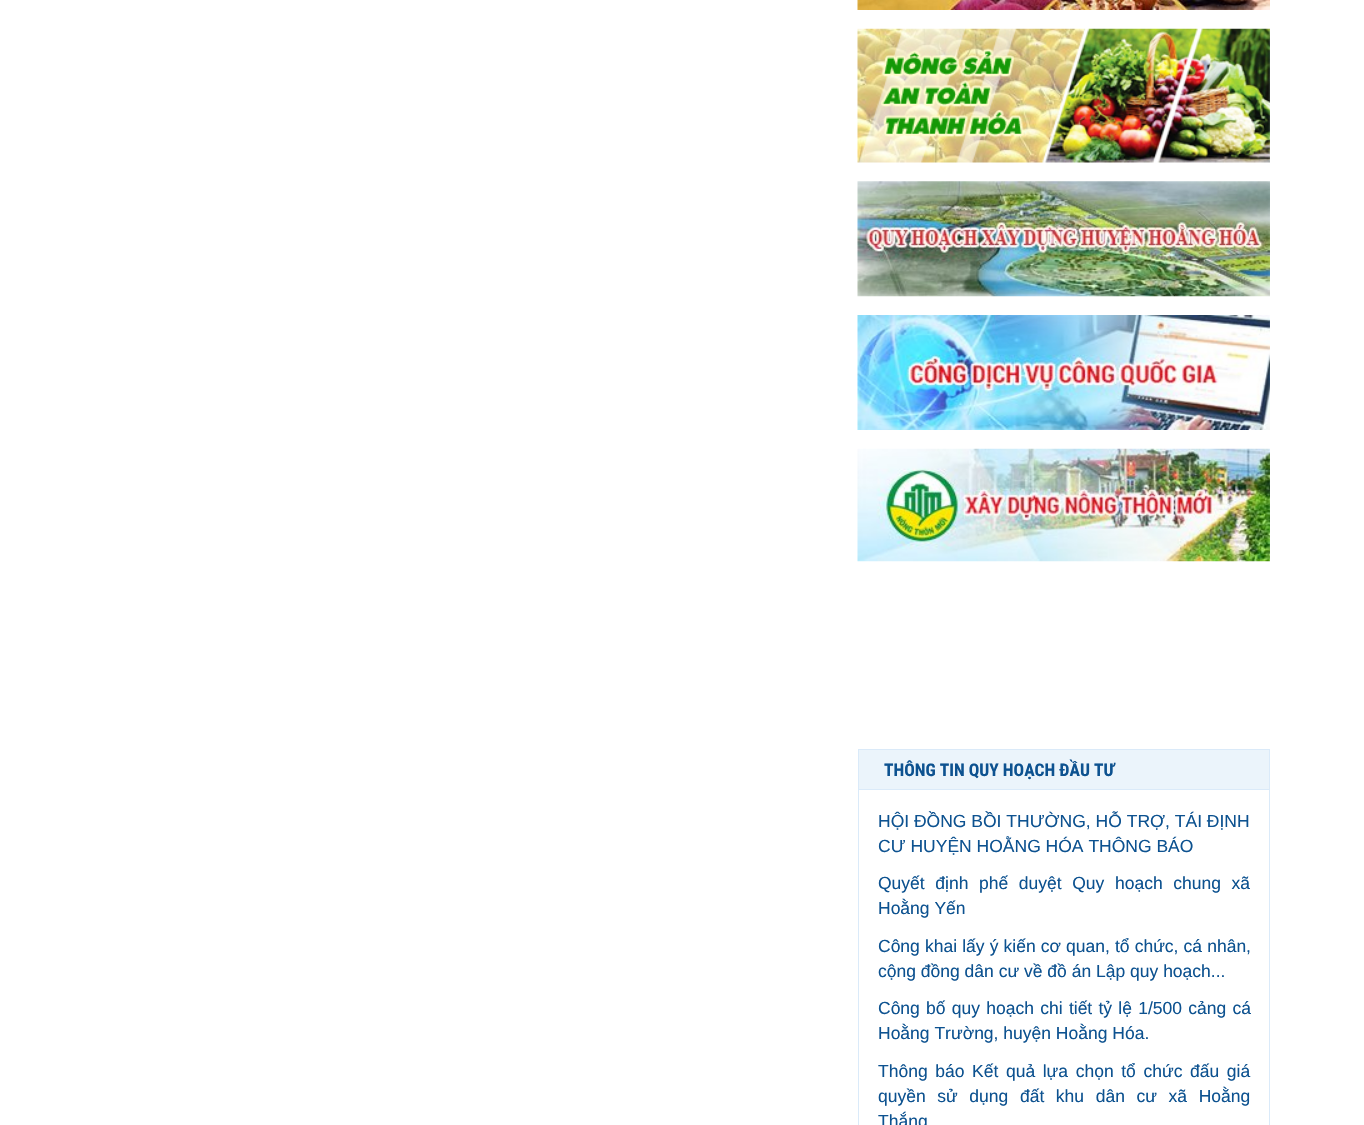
void draw(SkCanvas* canvas) {
    SkPaint paint;
    paint.setAntiAlias(true);
    auto spacedText = [&](const char* s, float x, float y, const SkFont& font, const SkPaint& ink, float letter, float word) {
        std::vector<SkGlyphID> glyphs(font.countText(s, strlen(s), SkTextEncoding::kUTF8));
        std::vector<float> xs(glyphs.size());
        font.textToGlyphs(s, strlen(s), SkTextEncoding::kUTF8, glyphs);
        font.getXPos(glyphs, xs, x);
        float extra = 0;
        for (size_t i = 0; i < glyphs.size(); i++) {
            xs[i] += extra;
            extra += letter + word * (glyphs[i] == font.unicharToGlyph(' '));
        }
        canvas->drawTextBlob(SkTextBlob::MakeFromPosHGlyphs(glyphs, xs, y, font), 0, 0, ink);
    };
    canvas->clear(0xFFFFFFFF);
    canvas->drawImageRect(SkImages::DeferredFromEncodedData(SkData::MakeFromFileName("img1.png")), SkRect::MakeXYWH(857, 0, 413, 10), SkSamplingOptions());
    canvas->drawImageRect(SkImages::DeferredFromEncodedData(SkData::MakeFromFileName("img2.png")), SkRect::MakeXYWH(857, 28, 413, 135), SkSamplingOptions());
    canvas->drawImageRect(SkImages::DeferredFromEncodedData(SkData::MakeFromFileName("img3.png")), SkRect::MakeXYWH(857, 181, 413, 116), SkSamplingOptions());
    canvas->drawImageRect(SkImages::DeferredFromEncodedData(SkData::MakeFromFileName("img4.png")), SkRect::MakeXYWH(857, 315, 413, 115), SkSamplingOptions());
    canvas->drawImageRect(SkImages::DeferredFromEncodedData(SkData::MakeFromFileName("img5.png")), SkRect::MakeXYWH(857, 448, 413, 114), SkSamplingOptions());
    paint.setStyle(SkPaint::kStroke_Style);
    paint.setStrokeWidth(1);
    paint.setColor(0xFFDAEAF9);
    canvas->drawRect(SkRect::MakeXYWH(858.5f, 749.5f, 411, 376), paint);
    paint.setStyle(SkPaint::kFill_Style);
    paint.setColor(0xFFEBF4FB);
    canvas->drawRect(SkRect::MakeXYWH(859, 750, 410, 39), paint);
    paint.setColor(0xFFDAEAF9);
    canvas->drawRect(SkRect::MakeXYWH(859, 789, 410, 1), paint);
    SkFont font1(fontMgr->matchFamilyStyle("Roboto Condensed", SkFontStyle::Bold()), 17.5f);
    font1.setSubpixel(true);
    paint.setColor(0xFF0D5290);
    canvas->drawString("THÔNG TIN QUY HOẠCH ĐẦU TƯ", 884, 776, font1, paint);
    SkFont font2(fontMgr->matchFamilyStyle("Liberation Sans", SkFontStyle::Normal()), 17.5f);
    font2.setSubpixel(true);
    canvas->drawString("HỘI ĐỒNG BỒI THƯỜNG, HỖ TRỢ, TÁI ĐỊNH", 878, 827, font2, paint);
    canvas->drawString("CƯ HUYỆN HOẰNG HÓA THÔNG BÁO", 878, 852, font2, paint);
    spacedText("Quyết định phế duyệt Quy hoạch chung xã", 878, 889, font2, paint, 0, 5.75f);
    canvas->drawString("Hoằng Yến", 878, 914, font2, paint);
    spacedText("Công khai lấy ý kiến cơ quan, tổ chức, cá nhân,", 878, 952, font2, paint, 0, 0.25f);
    canvas->drawString("cộng đồng dân cư về đồ án Lập quy hoạch...", 878, 977, font2, paint);
    spacedText("Công bố quy hoạch chi tiết tỷ lệ 1/500 cảng cá", 878, 1014, font2, paint, 0, 1.4f);
    canvas->drawString("Hoằng Trường, huyện Hoằng Hóa.", 878, 1039, font2, paint);
    spacedText("Thông báo Kết quả lựa chọn tổ chức đấu giá", 878, 1077, font2, paint, 0, 2.75f);
    spacedText("quyền sử dụng đất khu dân cư xã Hoằng", 878, 1102, font2, paint, 0, 6.75f);
    canvas->drawString("Thắng", 878, 1127, font2, paint);
}
